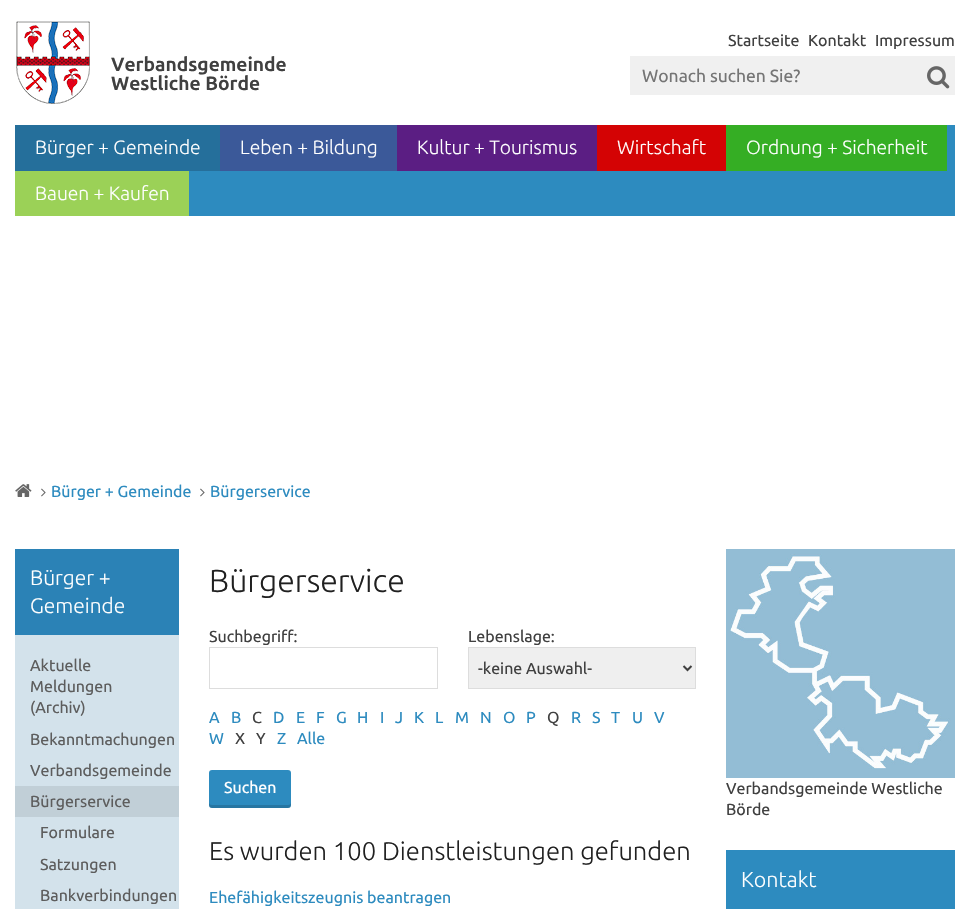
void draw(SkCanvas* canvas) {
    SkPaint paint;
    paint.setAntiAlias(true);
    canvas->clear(0xFFFFFFFF);
    canvas->drawImageRect(SkImages::DeferredFromEncodedData(SkData::MakeFromFileName("img1.png")), SkRect::MakeXYWH(16, 21, 74, 83), SkSamplingOptions());
    SkFont font1(fontMgr->matchFamilyStyle("Ubuntu", SkFontStyle::Bold()), 19.25f);
    font1.setSubpixel(true);
    paint.setColor(0xFF404040);
    canvas->drawString("Verbandsgemeinde", 111, 71, font1, paint);
    canvas->drawString("Westliche Börde", 111, 90, font1, paint);
    SkFont font2(fontMgr->matchFamilyStyle("Ubuntu", SkFontStyle::Normal()), 16);
    font2.setSubpixel(true);
    canvas->drawString("Startseite", 728, 46, font2, paint);
    canvas->drawString("Kontakt", 808, 46, font2, paint);
    canvas->drawString("Impressum", 875, 46, font2, paint);
    paint.setColor(0xFFF0F0F0);
    canvas->drawRect(SkRect::MakeXYWH(630, 56, 325, 39), paint);
    SkFont font3(fontMgr->matchFamilyStyle("Ubuntu", SkFontStyle::Normal()), 17.5f);
    font3.setSubpixel(true);
    paint.setColor(0xFF757575);
    canvas->drawString("Wonach suchen Sie?", 642, 82, font3, paint);
    canvas->drawImageRect(SkImages::DeferredFromEncodedData(SkData::MakeFromFileName("img2.png")), SkRect::MakeXYWH(927, 66, 23, 23), SkSamplingOptions());
    paint.setColor(0xFF2D8BBF);
    canvas->drawRect(SkRect::MakeXYWH(189, 125, 766, 91), paint);
    paint.setColor(0xFF256F9B);
    canvas->drawRect(SkRect::MakeXYWH(15, 125, 205, 46), paint);
    SkFont font4(fontMgr->matchFamilyStyle("Ubuntu", SkFontStyle(300, SkFontStyle::kNormal_Width, SkFontStyle::kUpright_Slant)), 19.25f);
    font4.setSubpixel(true);
    paint.setColor(0xFFFFFFFF);
    canvas->drawString("Bürger + Gemeinde", 35, 154, font4, paint);
    paint.setColor(0xFF3B5999);
    canvas->drawRect(SkRect::MakeXYWH(220, 125, 177, 46), paint);
    paint.setColor(0xFFFFFFFF);
    canvas->drawString("Leben + Bildung", 240, 154, font4, paint);
    paint.setColor(0xFF5B1E83);
    canvas->drawRect(SkRect::MakeXYWH(397, 125, 200, 46), paint);
    paint.setColor(0xFFFFFFFF);
    canvas->drawString("Kultur + Tourismus", 417, 154, font4, paint);
    paint.setColor(0xFFD40304);
    canvas->drawRect(SkRect::MakeXYWH(597, 125, 129, 46), paint);
    paint.setColor(0xFFFFFFFF);
    canvas->drawString("Wirtschaft", 617, 154, font4, paint);
    paint.setColor(0xFF35AE24);
    canvas->drawRect(SkRect::MakeXYWH(726, 125, 221, 46), paint);
    paint.setColor(0xFFFFFFFF);
    canvas->drawString("Ordnung + Sicherheit", 746, 154, font4, paint);
    paint.setColor(0xFF9BD157);
    canvas->drawRect(SkRect::MakeXYWH(15, 171, 174, 45), paint);
    paint.setColor(0xFFFFFFFF);
    canvas->drawString("Bauen + Kaufen", 35, 200, font4, paint);
    canvas->drawImageRect(SkImages::DeferredFromEncodedData(SkData::MakeFromFileName("img3.png")), SkRect::MakeXYWH(15, 484, 17, 13), SkSamplingOptions());
    canvas->drawImageRect(SkImages::DeferredFromEncodedData(SkData::MakeFromFileName("img4.png")), SkRect::MakeXYWH(41, 488, 5, 9), SkSamplingOptions());
    paint.setColor(0xFF2D8BBF);
    canvas->drawString("Bürger + Gemeinde", 51, 497, font2, paint);
    canvas->drawImageRect(SkImages::DeferredFromEncodedData(SkData::MakeFromFileName("img4.png")), SkRect::MakeXYWH(200, 488, 5, 9), SkSamplingOptions());
    canvas->drawString("Bürgerservice", 210, 497, font2, paint);
    paint.setColor(0xFFD3E2EB);
    canvas->drawRect(SkRect::MakeXYWH(15, 635, 164, 274), paint);
    paint.setColor(0xFF2B82B6);
    canvas->drawRect(SkRect::MakeXYWH(15, 549, 164, 86), paint);
    SkFont font5(fontMgr->matchFamilyStyle("Ubuntu", SkFontStyle(300, SkFontStyle::kNormal_Width, SkFontStyle::kUpright_Slant)), 21);
    font5.setSubpixel(true);
    paint.setColor(0xFFFFFFFF);
    canvas->drawString("Bürger +", 30, 585, font5, paint);
    canvas->drawString("Gemeinde", 30, 613, font5, paint);
    paint.setColor(0xFF5D5D5D);
    canvas->drawString("Aktuelle", 30, 671, font2, paint);
    canvas->drawString("Meldungen", 30, 692, font2, paint);
    canvas->drawString("(Archiv)", 30, 713, font2, paint);
    canvas->drawString("Bekanntmachungen", 30, 745, font2, paint);
    canvas->drawString("Verbandsgemeinde", 30, 776, font2, paint);
    paint.setColor(0xFFC1CFD7);
    canvas->drawRect(SkRect::MakeXYWH(15, 786, 164, 31), paint);
    paint.setColor(0xFF5D5D5D);
    canvas->drawString("Bürgerservice", 30, 807, font2, paint);
    canvas->drawString("Formulare", 40, 838, font2, paint);
    canvas->drawString("Satzungen", 40, 870, font2, paint);
    canvas->drawString("Bankverbindungen", 40, 901, font2, paint);
    SkFont font6(fontMgr->matchFamilyStyle("Ubuntu", SkFontStyle(300, SkFontStyle::kNormal_Width, SkFontStyle::kUpright_Slant)), 32);
    font6.setSubpixel(true);
    paint.setColor(0xFF202020);
    canvas->drawString("Bürgerservice", 209, 592, font6, paint);
    paint.setColor(0xFF404040);
    canvas->drawString("Suchbegriff:", 209, 642, font2, paint);
    paint.setStyle(SkPaint::kStroke_Style);
    paint.setStrokeWidth(1);
    paint.setColor(0xFFDDDDDD);
    canvas->drawRect(SkRect::MakeXYWH(209.5f, 647.5f, 228, 41), paint);
    paint.setStyle(SkPaint::kFill_Style);
    paint.setColor(0xFF404040);
    canvas->drawString("Lebenslage:", 468, 642, font2, paint);
    paint.setColor(0xFFEFEFEF);
    canvas->drawRect(SkRect::MakeXYWH(468.5f, 647.5f, 227, 41), paint);
    paint.setStyle(SkPaint::kStroke_Style);
    paint.setColor(0xFFDDDDDD);
    canvas->drawRect(SkRect::MakeXYWH(468.5f, 647.5f, 227, 41), paint);
    paint.setStrokeWidth(2);
    paint.setColor(0xFF404040);
    canvas->drawPath(SkPathBuilder().moveTo(683.5f, 666).lineTo(687.5f, 670).lineTo(691.5f, 666).detach(), paint);
    paint.setStyle(SkPaint::kFill_Style);
    canvas->drawString("-keine Auswahl-", 478, 674, font2, paint);
    paint.setColor(0xFF2D8BBF);
    canvas->drawString("A", 209, 723, font2, paint);
    canvas->drawString("B", 231, 723, font2, paint);
    paint.setColor(0xFF404040);
    canvas->drawString("C", 252, 723, font2, paint);
    paint.setColor(0xFF2D8BBF);
    canvas->drawString("D", 273, 723, font2, paint);
    canvas->drawString("E", 296, 723, font2, paint);
    canvas->drawString("F", 316, 723, font2, paint);
    canvas->drawString("G", 336, 723, font2, paint);
    canvas->drawString("H", 357, 723, font2, paint);
    canvas->drawString("I", 380, 723, font2, paint);
    canvas->drawString("J", 395, 723, font2, paint);
    canvas->drawString("K", 414, 723, font2, paint);
    canvas->drawString("L", 435, 723, font2, paint);
    canvas->drawString("M", 455, 723, font2, paint);
    canvas->drawString("N", 480, 723, font2, paint);
    canvas->drawString("O", 503, 723, font2, paint);
    canvas->drawString("P", 526, 723, font2, paint);
    paint.setColor(0xFF404040);
    canvas->drawString("Q", 547, 723, font2, paint);
    paint.setColor(0xFF2D8BBF);
    canvas->drawString("R", 571, 723, font2, paint);
    canvas->drawString("S", 592, 723, font2, paint);
    canvas->drawString("T", 611, 723, font2, paint);
    canvas->drawString("U", 632, 723, font2, paint);
    canvas->drawString("V", 654, 723, font2, paint);
    canvas->drawString("W", 209, 744, font2, paint);
    paint.setColor(0xFF404040);
    canvas->drawString("X", 235, 744, font2, paint);
    canvas->drawString("Y", 256, 744, font2, paint);
    paint.setColor(0xFF2D8BBF);
    canvas->drawString("Z", 277, 744, font2, paint);
    canvas->drawString("Alle", 297, 744, font2, paint);
    canvas->drawRoundRect(SkRect::MakeXYWH(209, 770, 82, 38), 3, 3, paint);
    paint.setColor(0x26000000);
    canvas->drawPath(SkPathBuilder().moveTo(209, 802).lineTo(209, 805).cubicTo(209, 807, 210, 808, 212, 808).lineTo(288, 808).cubicTo(290, 808, 291, 807, 291, 805).lineTo(291, 802).cubicTo(291, 804, 290, 805, 288, 805).lineTo(212, 805).cubicTo(210, 805, 209, 804, 209, 802).close().detach(), paint);
    paint.setColor(0xFFFFFFFF);
    canvas->drawString("Suchen", 224, 793, font2, paint);
    SkFont font7(fontMgr->matchFamilyStyle("Ubuntu", SkFontStyle(300, SkFontStyle::kNormal_Width, SkFontStyle::kUpright_Slant)), 25.6f);
    font7.setSubpixel(true);
    paint.setColor(0xFF202020);
    canvas->drawString("Es wurden 100 Dienstleistungen gefunden", 209, 860, font7, paint);
    paint.setColor(0xFF2D8BBF);
    canvas->drawString("Ehefähigkeitszeugnis beantragen", 209, 903, font2, paint);
    canvas->drawImageRect(SkImages::DeferredFromEncodedData(SkData::MakeFromFileName("img5.png")), SkRect::MakeXYWH(726, 549, 229, 229), SkSamplingOptions());
    paint.setColor(0xFF404040);
    canvas->drawString("Verbandsgemeinde Westliche", 726, 794, font2, paint);
    canvas->drawString("Börde", 726, 815, font2, paint);
    paint.setColor(0xFF2D8BBF);
    canvas->drawRect(SkRect::MakeXYWH(726, 850, 229, 59), paint);
    SkFont font8(fontMgr->matchFamilyStyle("Ubuntu", SkFontStyle(300, SkFontStyle::kNormal_Width, SkFontStyle::kUpright_Slant)), 21.5f);
    font8.setSubpixel(true);
    paint.setColor(0xFFFFFFFF);
    canvas->drawString("Kontakt", 741, 887, font8, paint);
}
